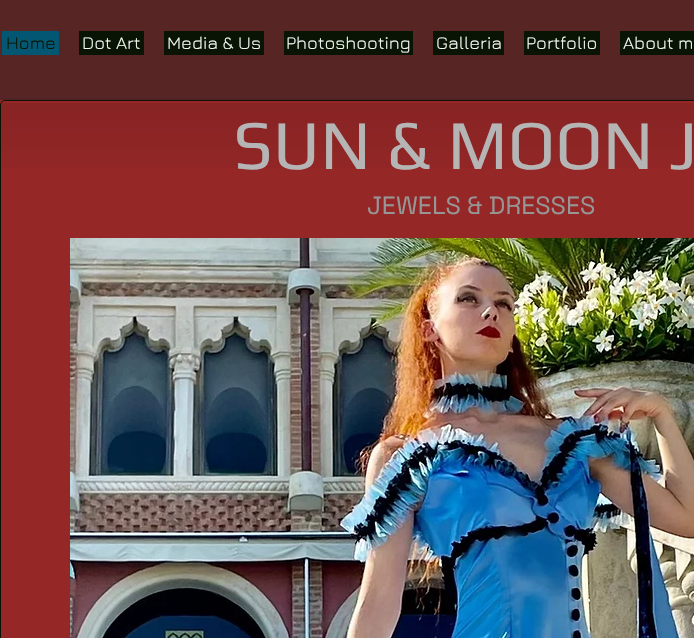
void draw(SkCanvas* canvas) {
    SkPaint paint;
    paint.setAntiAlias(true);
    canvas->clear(0xFFA62828);
    canvas->save();
    canvas->clipPath(SkPathBuilder(SkPathFillType::kEvenOdd).moveTo(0, 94).lineTo(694, 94).lineTo(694, 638).lineTo(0, 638).close().moveTo(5, 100).lineTo(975, 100).cubicTo(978, 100, 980, 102, 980, 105).lineTo(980, 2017).cubicTo(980, 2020, 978, 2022, 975, 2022).lineTo(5, 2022).cubicTo(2, 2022, 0, 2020, 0, 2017).lineTo(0, 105).cubicTo(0, 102, 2, 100, 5, 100).close().detach(), true);
    paint.setColor(0x99000000);
    paint.setMaskFilter(SkMaskFilter::MakeBlur(kNormal_SkBlurStyle, 2));
    canvas->drawRoundRect(SkRect::MakeXYWH(0, 101, 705, 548), 5, 5, paint);
    paint.setMaskFilter(nullptr);
    canvas->restore();
    paint.setColor(0x99232323);
    canvas->drawRect(SkRect::MakeXYWH(0, 0, 694, 100), paint);
    paint.setColor(0xFF035772);
    canvas->drawRect(SkRect::MakeXYWH(2, 31, 57, 24), paint);
    SkFont font1(fontMgr->matchFamilyStyle("Jura", SkFontStyle::Normal()), 18);
    font1.setSubpixel(true);
    paint.setColor(0xFF091405);
    canvas->drawString("Home", 6, 49, font1, paint);
    canvas->drawRect(SkRect::MakeXYWH(79, 31, 65, 24), paint);
    paint.setColor(0xFFF6F9F5);
    canvas->drawString("Dot Art", 82, 49, font1, paint);
    paint.setColor(0xFF091405);
    canvas->drawRect(SkRect::MakeXYWH(164, 31, 100, 24), paint);
    paint.setColor(0xFFF6F9F5);
    canvas->drawString("Media & Us", 167, 49, font1, paint);
    paint.setColor(0xFF091405);
    canvas->drawRect(SkRect::MakeXYWH(284, 31, 129, 24), paint);
    paint.setColor(0xFFF6F9F5);
    canvas->drawString("Photoshooting", 286, 49, font1, paint);
    paint.setColor(0xFF091405);
    canvas->drawRect(SkRect::MakeXYWH(433, 31, 71, 24), paint);
    paint.setColor(0xFFF6F9F5);
    canvas->drawString("Galleria", 436, 49, font1, paint);
    paint.setColor(0xFF091405);
    canvas->drawRect(SkRect::MakeXYWH(524, 31, 76, 24), paint);
    paint.setColor(0xFFF6F9F5);
    canvas->drawString("Portfolio", 526, 49, font1, paint);
    paint.setColor(0xFF091405);
    canvas->drawRect(SkRect::MakeXYWH(620, 31, 74, 24), paint);
    paint.setColor(0xFFF6F9F5);
    canvas->drawString("About m", 623, 49, font1, paint);
    paint.setColor(0x5C7B2524);
    canvas->drawRoundRect(SkRect::MakeXYWH(0, 100, 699, 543), 5, 5, paint);
    canvas->drawImageRect(SkImages::DeferredFromEncodedData(SkData::MakeFromFileName("img1.png")), SkRect::MakeXYWH(0, 103, 694, 65), SkSamplingOptions());
    paint.setStyle(SkPaint::kStroke_Style);
    paint.setStrokeWidth(1);
    paint.setColor(0xFF091405);
    canvas->drawRoundRect(SkRect::MakeXYWH(0.5f, 100.5f, 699, 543), 4.5f, 4.5f, paint);
    SkFont font2(fontMgr->matchFamilyStyle("Play", SkFontStyle::Normal()), 70);
    font2.setSubpixel(true);
    paint.setStyle(SkPaint::kFill_Style);
    paint.setColor(0xFFB5B5B5);
    canvas->drawString("SUN & MOON J", 233, 169, font2, paint);
    SkFont font3(fontMgr->matchFamilyStyle("Space Grotesk", SkFontStyle::Normal()), 25);
    font3.setSubpixel(true);
    paint.setColor(0xFF969696);
    canvas->drawString("JEWELS & DRESSES", 367, 214, font3, paint);
    canvas->drawImageRect(SkImages::DeferredFromEncodedData(SkData::MakeFromFileName("img2.png")), SkRect::MakeXYWH(70, 238, 624, 400), SkSamplingOptions());
}
